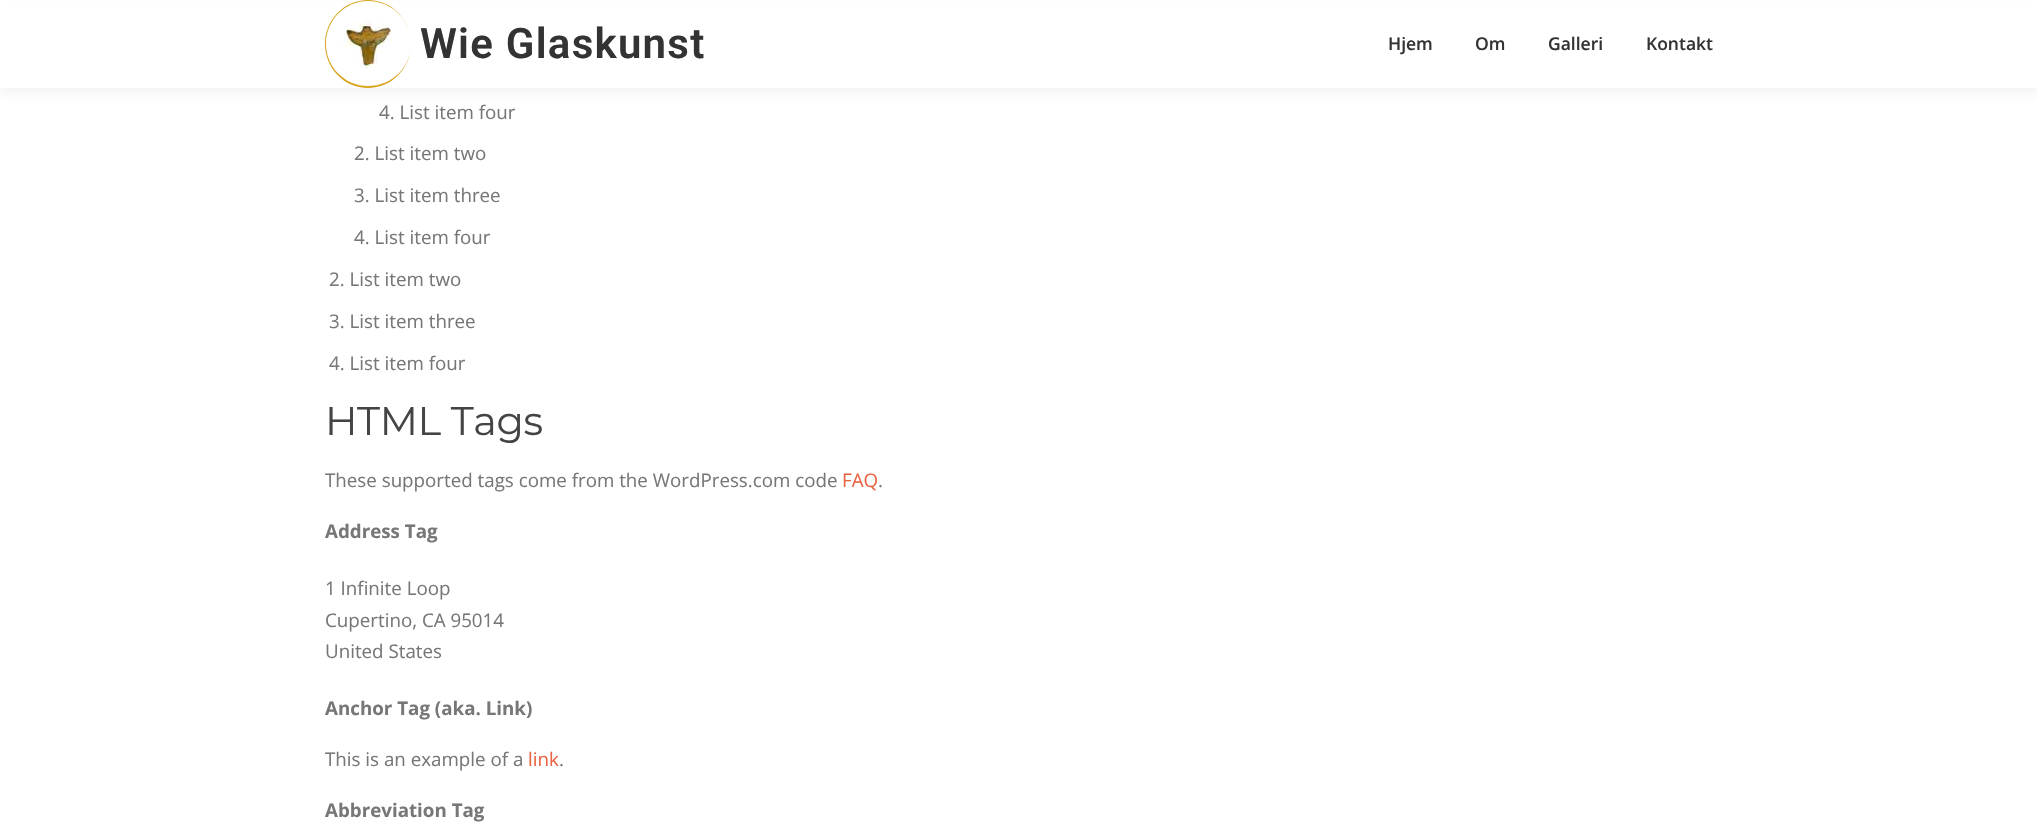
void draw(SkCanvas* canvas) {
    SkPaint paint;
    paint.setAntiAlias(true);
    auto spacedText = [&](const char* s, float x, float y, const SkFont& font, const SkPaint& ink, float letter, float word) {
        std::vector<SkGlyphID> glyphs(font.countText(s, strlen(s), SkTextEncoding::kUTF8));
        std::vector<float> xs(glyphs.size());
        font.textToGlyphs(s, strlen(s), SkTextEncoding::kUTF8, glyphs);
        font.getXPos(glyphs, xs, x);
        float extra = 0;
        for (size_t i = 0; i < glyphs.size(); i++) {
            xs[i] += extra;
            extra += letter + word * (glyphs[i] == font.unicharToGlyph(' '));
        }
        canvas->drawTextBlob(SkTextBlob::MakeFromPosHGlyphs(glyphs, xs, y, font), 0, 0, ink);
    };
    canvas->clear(0xFFFFFFFF);
    paint.setColor(0x0F323232);
    paint.setMaskFilter(SkMaskFilter::MakeBlur(kNormal_SkBlurStyle, 6));
    canvas->drawRect(SkRect::MakeXYWH(0, 6, 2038, 88), paint);
    paint.setMaskFilter(nullptr);
    paint.setColor(0xFFFFFFFF);
    canvas->drawRect(SkRect::MakeXYWH(0, 1, 2037, 87), paint);
    paint.setColor(0xFFDAA520);
    canvas->drawPath(SkPathBuilder(SkPathFillType::kEvenOdd).moveTo(368, 0).cubicTo(392, 0, 411, 20, 411, 44).cubicTo(411, 68, 392, 88, 368, 88).cubicTo(344, 88, 325, 68, 325, 44).cubicTo(325, 20, 344, 0, 368, 0).close().moveTo(368, 1).cubicTo(392, 1, 411, 20, 411, 44).cubicTo(411, 67, 392, 86, 368, 86).cubicTo(345, 86, 326, 67, 326, 44).cubicTo(326, 20, 345, 1, 368, 1).close().detach(), paint);
    canvas->drawImageRect(SkImages::DeferredFromEncodedData(SkData::MakeFromFileName("img1.png")), SkRect::MakeXYWH(343, 18, 49, 50), SkSamplingOptions());
    SkFont font1(fontMgr->matchFamilyStyle("Roboto", SkFontStyle(600, SkFontStyle::kNormal_Width, SkFontStyle::kUpright_Slant)), 42);
    font1.setSubpixel(true);
    paint.setColor(0xFF333333);
    spacedText("Wie Glaskunst", 420, 58, font1, paint, 1.25f, 0);
    SkFont font2(fontMgr->matchFamilyStyle("Open Sans", SkFontStyle(600, SkFontStyle::kNormal_Width, SkFontStyle::kUpright_Slant)), 17.5f);
    font2.setSubpixel(true);
    canvas->drawString("Hjem", 1388, 50, font2, paint);
    canvas->drawString("Om", 1475, 50, font2, paint);
    canvas->drawString("Galleri", 1548, 50, font2, paint);
    canvas->drawString("Kontakt", 1646, 50, font2, paint);
    SkFont font3(fontMgr->matchFamilyStyle("Open Sans", SkFontStyle::Normal()), 18.75f);
    font3.setSubpixel(true);
    paint.setColor(0xFF777777);
    canvas->drawString("4. List item four", 379, 119, font3, paint);
    canvas->drawString("2. List item two", 354, 160, font3, paint);
    canvas->drawString("3. List item three", 354, 202, font3, paint);
    canvas->drawString("4. List item four", 354, 244, font3, paint);
    canvas->drawString("2. List item two", 329, 286, font3, paint);
    canvas->drawString("3. List item three", 329, 328, font3, paint);
    canvas->drawString("4. List item four", 329, 370, font3, paint);
    SkFont font4(fontMgr->matchFamilyStyle("Montserrat", SkFontStyle::Normal()), 40);
    font4.setSubpixel(true);
    paint.setColor(0xFF444444);
    spacedText("HTML Tags", 325, 435, font4, paint, -0.4f, 0);
    paint.setColor(0xFF777777);
    canvas->drawString("These supported tags come from the WordPress.com code", 325, 487, font3, paint);
    paint.setColor(0xFFE86240);
    canvas->drawString("FAQ", 842, 487, font3, paint);
    paint.setColor(0xFF777777);
    canvas->drawString(".", 878, 487, font3, paint);
    SkFont font5(fontMgr->matchFamilyStyle("Open Sans", SkFontStyle::Bold()), 18.75f);
    font5.setSubpixel(true);
    canvas->drawString("Address Tag", 325, 538, font5, paint);
    canvas->drawString("1 Infinite Loop", 325, 595, font3, paint);
    canvas->drawString("Cupertino, CA 95014", 325, 627, font3, paint);
    canvas->drawString("United States", 325, 658, font3, paint);
    canvas->drawString("Anchor Tag (aka. Link)", 325, 715, font5, paint);
    canvas->drawString("This is an example of a", 325, 766, font3, paint);
    paint.setColor(0xFFE86240);
    canvas->drawString("link", 528, 766, font3, paint);
    paint.setColor(0xFF777777);
    canvas->drawString(".", 559, 766, font3, paint);
    canvas->drawString("Abbreviation Tag", 325, 817, font5, paint);
}
